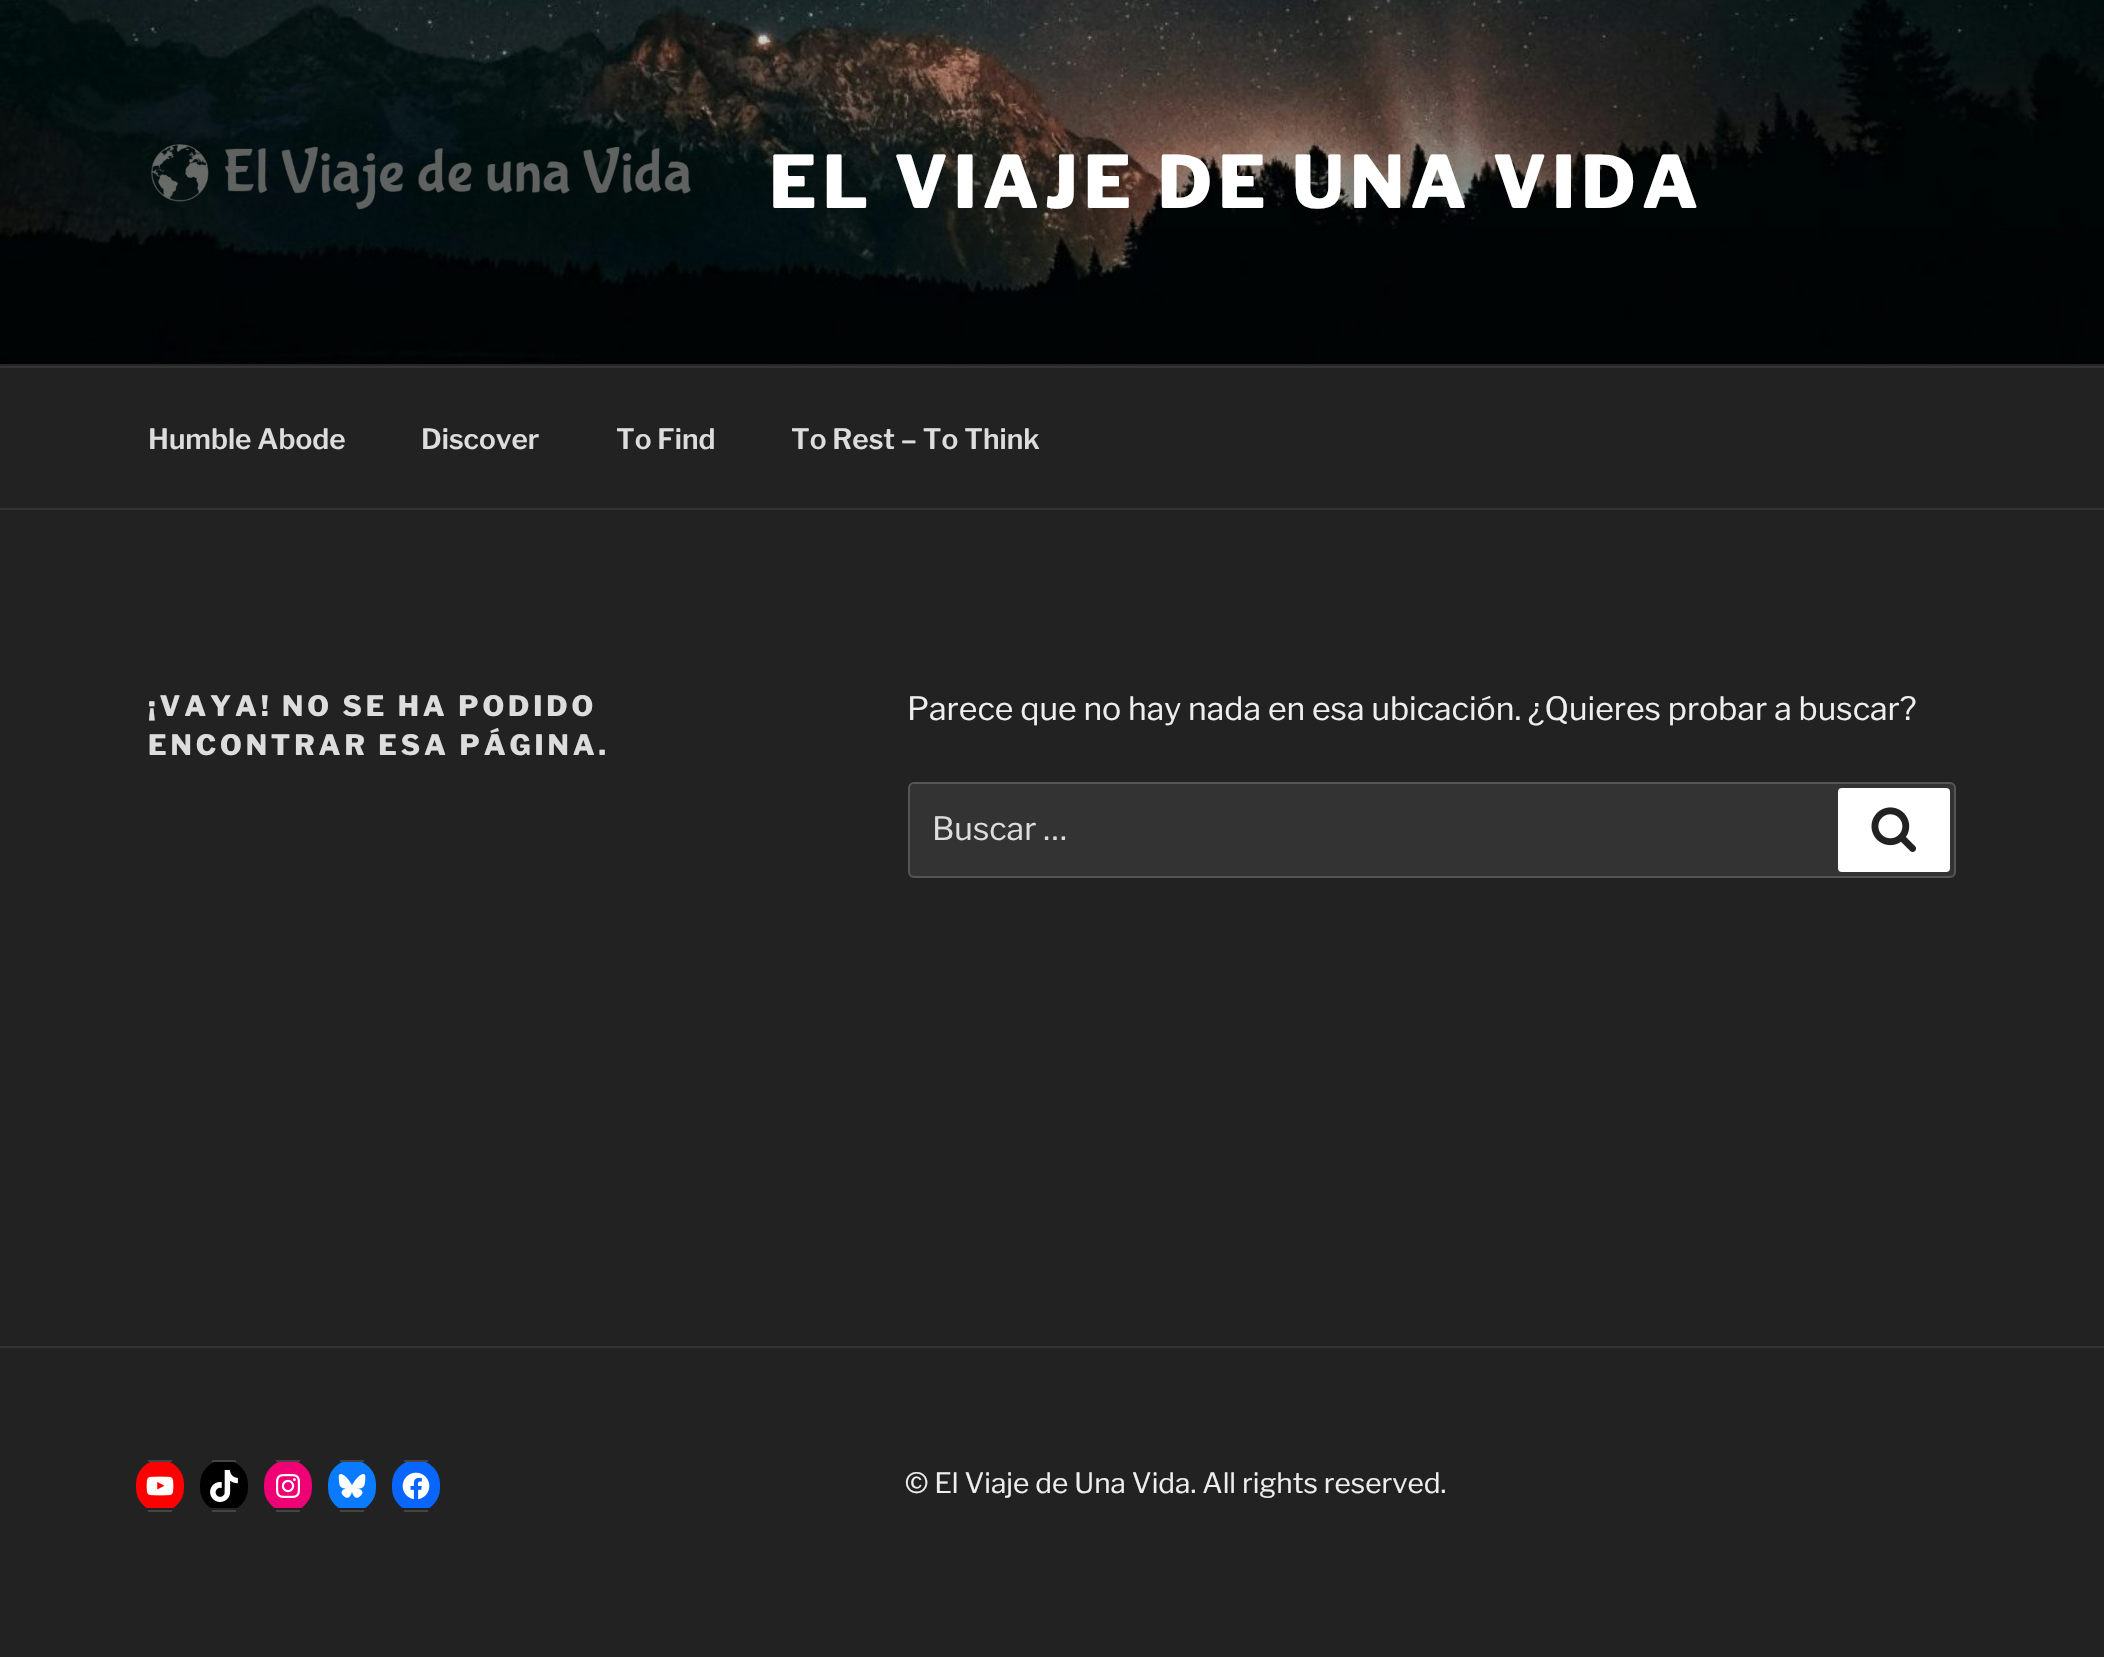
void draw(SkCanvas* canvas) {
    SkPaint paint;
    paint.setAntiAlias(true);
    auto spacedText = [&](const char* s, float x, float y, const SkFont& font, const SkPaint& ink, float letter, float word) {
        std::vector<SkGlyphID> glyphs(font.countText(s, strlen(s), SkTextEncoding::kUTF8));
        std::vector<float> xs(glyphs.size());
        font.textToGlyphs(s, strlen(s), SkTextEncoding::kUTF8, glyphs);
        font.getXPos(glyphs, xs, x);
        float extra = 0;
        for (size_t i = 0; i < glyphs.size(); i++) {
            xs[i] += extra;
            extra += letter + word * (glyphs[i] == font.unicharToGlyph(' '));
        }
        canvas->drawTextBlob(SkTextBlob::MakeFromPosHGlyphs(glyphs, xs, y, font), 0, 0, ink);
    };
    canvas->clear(0xFF222222);
    paint.setColor(0xFF262626);
    canvas->drawRect(SkRect::MakeXYWH(0, 364, 2104, 2), paint);
    canvas->drawImageRect(SkImages::DeferredFromEncodedData(SkData::MakeFromFileName("img1.png")), SkRect::MakeXYWH(0, 0, 2104, 364), SkSamplingOptions());
    canvas->drawImageRect(SkImages::DeferredFromEncodedData(SkData::MakeFromFileName("img2.png")), SkRect::MakeXYWH(151, 144, 540, 66), SkSamplingOptions());
    SkFont font1(fontMgr->matchFamilyStyle("Libre Franklin", SkFontStyle(100, SkFontStyle::kNormal_Width, SkFontStyle::kUpright_Slant)), 72);
    font1.setSubpixel(true);
    paint.setColor(0xFFFFFFFF);
    spacedText("EL VIAJE DE UNA VIDA", 769, 208, font1, paint, 5.75f, 0);
    paint.setColor(0xFF333333);
    canvas->drawRect(SkRect::MakeXYWH(0, 366, 2104, 2), paint);
    canvas->drawRect(SkRect::MakeXYWH(0, 508, 2104, 2), paint);
    SkFont font2(fontMgr->matchFamilyStyle("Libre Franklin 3", SkFontStyle(100, SkFontStyle::kNormal_Width, SkFontStyle::kUpright_Slant)), 28);
    font2.setSubpixel(true);
    paint.setColor(0xFFDDDDDD);
    canvas->drawString("Humble Abode", 148, 449, font2, paint);
    canvas->drawString("Discover", 421, 449, font2, paint);
    canvas->drawString("To Find", 616, 449, font2, paint);
    canvas->drawString("To Rest – To Think", 791, 449, font2, paint);
    SkFont font3(fontMgr->matchFamilyStyle("Libre Franklin", SkFontStyle(100, SkFontStyle::kNormal_Width, SkFontStyle::kUpright_Slant)), 28);
    font3.setSubpixel(true);
    spacedText("¡VAYA! NO SE HA PODIDO", 148, 716, font3, paint, 3.9f, 0);
    spacedText("ENCONTRAR ESA PÁGINA.", 148, 755, font3, paint, 3.9f, 0);
    SkFont font4(fontMgr->matchFamilyStyle("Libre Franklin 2", SkFontStyle(100, SkFontStyle::kNormal_Width, SkFontStyle::kUpright_Slant)), 32);
    font4.setSubpixel(true);
    paint.setColor(0xFFEEEEEE);
    canvas->drawString("Parece que no hay nada en esa ubicación. ¿Quieres probar a buscar?", 907, 720, font4, paint);
    paint.setColor(0xFF333333);
    canvas->drawRoundRect(SkRect::MakeXYWH(909, 783, 1046, 94), 5, 5, paint);
    paint.setStyle(SkPaint::kStroke_Style);
    paint.setStrokeWidth(2);
    paint.setColor(0xFF555555);
    canvas->drawRoundRect(SkRect::MakeXYWH(909, 783, 1046, 94), 5, 5, paint);
    paint.setStyle(SkPaint::kFill_Style);
    paint.setColor(0xFFDDDDDD);
    canvas->drawString("Buscar …", 932, 840, font4, paint);
    paint.setColor(0xFFFFFFFF);
    canvas->drawRoundRect(SkRect::MakeXYWH(1838, 788, 112, 84), 4, 4, paint);
    canvas->drawImageRect(SkImages::DeferredFromEncodedData(SkData::MakeFromFileName("img3.png")), SkRect::MakeXYWH(1871, 807, 46, 45), SkSamplingOptions());
    paint.setColor(0xFF333333);
    canvas->drawRect(SkRect::MakeXYWH(0, 1346, 2104, 2), paint);
    paint.setColor(0xFFFF0000);
    canvas->drawRoundRect(SkRect::MakeXYWH(136, 1460, 48, 52), 24, 24, paint);
    paint.setColor(0xFF444444);
    canvas->drawRect(SkRect::MakeXYWH(148, 1460, 24, 2), paint);
    canvas->drawRect(SkRect::MakeXYWH(148, 1510, 24, 2), paint);
    paint.setColor(0xFF222222);
    canvas->drawRect(SkRect::MakeXYWH(146, 1508, 28, 2), paint);
    canvas->drawImageRect(SkImages::DeferredFromEncodedData(SkData::MakeFromFileName("img4.png")), SkRect::MakeXYWH(146, 1476, 28, 20), SkSamplingOptions());
    paint.setColor(0xFF000000);
    canvas->drawRoundRect(SkRect::MakeXYWH(200, 1460, 48, 52), 24, 24, paint);
    paint.setColor(0xFF444444);
    canvas->drawRect(SkRect::MakeXYWH(212, 1460, 24, 2), paint);
    canvas->drawRect(SkRect::MakeXYWH(212, 1510, 24, 2), paint);
    paint.setColor(0xFF222222);
    canvas->drawRect(SkRect::MakeXYWH(211, 1508, 26, 2), paint);
    canvas->drawImageRect(SkImages::DeferredFromEncodedData(SkData::MakeFromFileName("img5.png")), SkRect::MakeXYWH(210, 1470, 28, 32), SkSamplingOptions());
    paint.setColor(0xFFF00075);
    canvas->drawRoundRect(SkRect::MakeXYWH(264, 1460, 48, 52), 24, 24, paint);
    paint.setColor(0xFF444444);
    canvas->drawRect(SkRect::MakeXYWH(276, 1460, 24, 2), paint);
    canvas->drawRect(SkRect::MakeXYWH(276, 1510, 24, 2), paint);
    paint.setColor(0xFF222222);
    canvas->drawRect(SkRect::MakeXYWH(274, 1508, 28, 2), paint);
    canvas->drawImageRect(SkImages::DeferredFromEncodedData(SkData::MakeFromFileName("img6.png")), SkRect::MakeXYWH(276, 1474, 24, 24), SkSamplingOptions());
    paint.setColor(0xFF0A7AFF);
    canvas->drawRoundRect(SkRect::MakeXYWH(328, 1460, 48, 52), 24, 24, paint);
    paint.setColor(0xFF444444);
    canvas->drawRect(SkRect::MakeXYWH(340, 1460, 24, 2), paint);
    canvas->drawRect(SkRect::MakeXYWH(340, 1510, 24, 2), paint);
    paint.setColor(0xFF222222);
    canvas->drawRect(SkRect::MakeXYWH(338, 1508, 28, 2), paint);
    canvas->drawImageRect(SkImages::DeferredFromEncodedData(SkData::MakeFromFileName("img7.png")), SkRect::MakeXYWH(338, 1474, 28, 24), SkSamplingOptions());
    paint.setColor(0xFF0866FF);
    canvas->drawRoundRect(SkRect::MakeXYWH(392, 1460, 48, 52), 24, 24, paint);
    paint.setColor(0xFF444444);
    canvas->drawRect(SkRect::MakeXYWH(404, 1460, 24, 2), paint);
    canvas->drawRect(SkRect::MakeXYWH(404, 1510, 24, 2), paint);
    paint.setColor(0xFF222222);
    canvas->drawRect(SkRect::MakeXYWH(402, 1508, 28, 2), paint);
    canvas->drawImageRect(SkImages::DeferredFromEncodedData(SkData::MakeFromFileName("img8.png")), SkRect::MakeXYWH(402, 1472, 28, 28), SkSamplingOptions());
    SkFont font5(fontMgr->matchFamilyStyle("Libre Franklin 2", SkFontStyle(100, SkFontStyle::kNormal_Width, SkFontStyle::kUpright_Slant)), 28);
    font5.setSubpixel(true);
    paint.setColor(0xFFEEEEEE);
    canvas->drawString("© El Viaje de Una Vida. All rights reserved.", 905, 1493, font5, paint);
}
